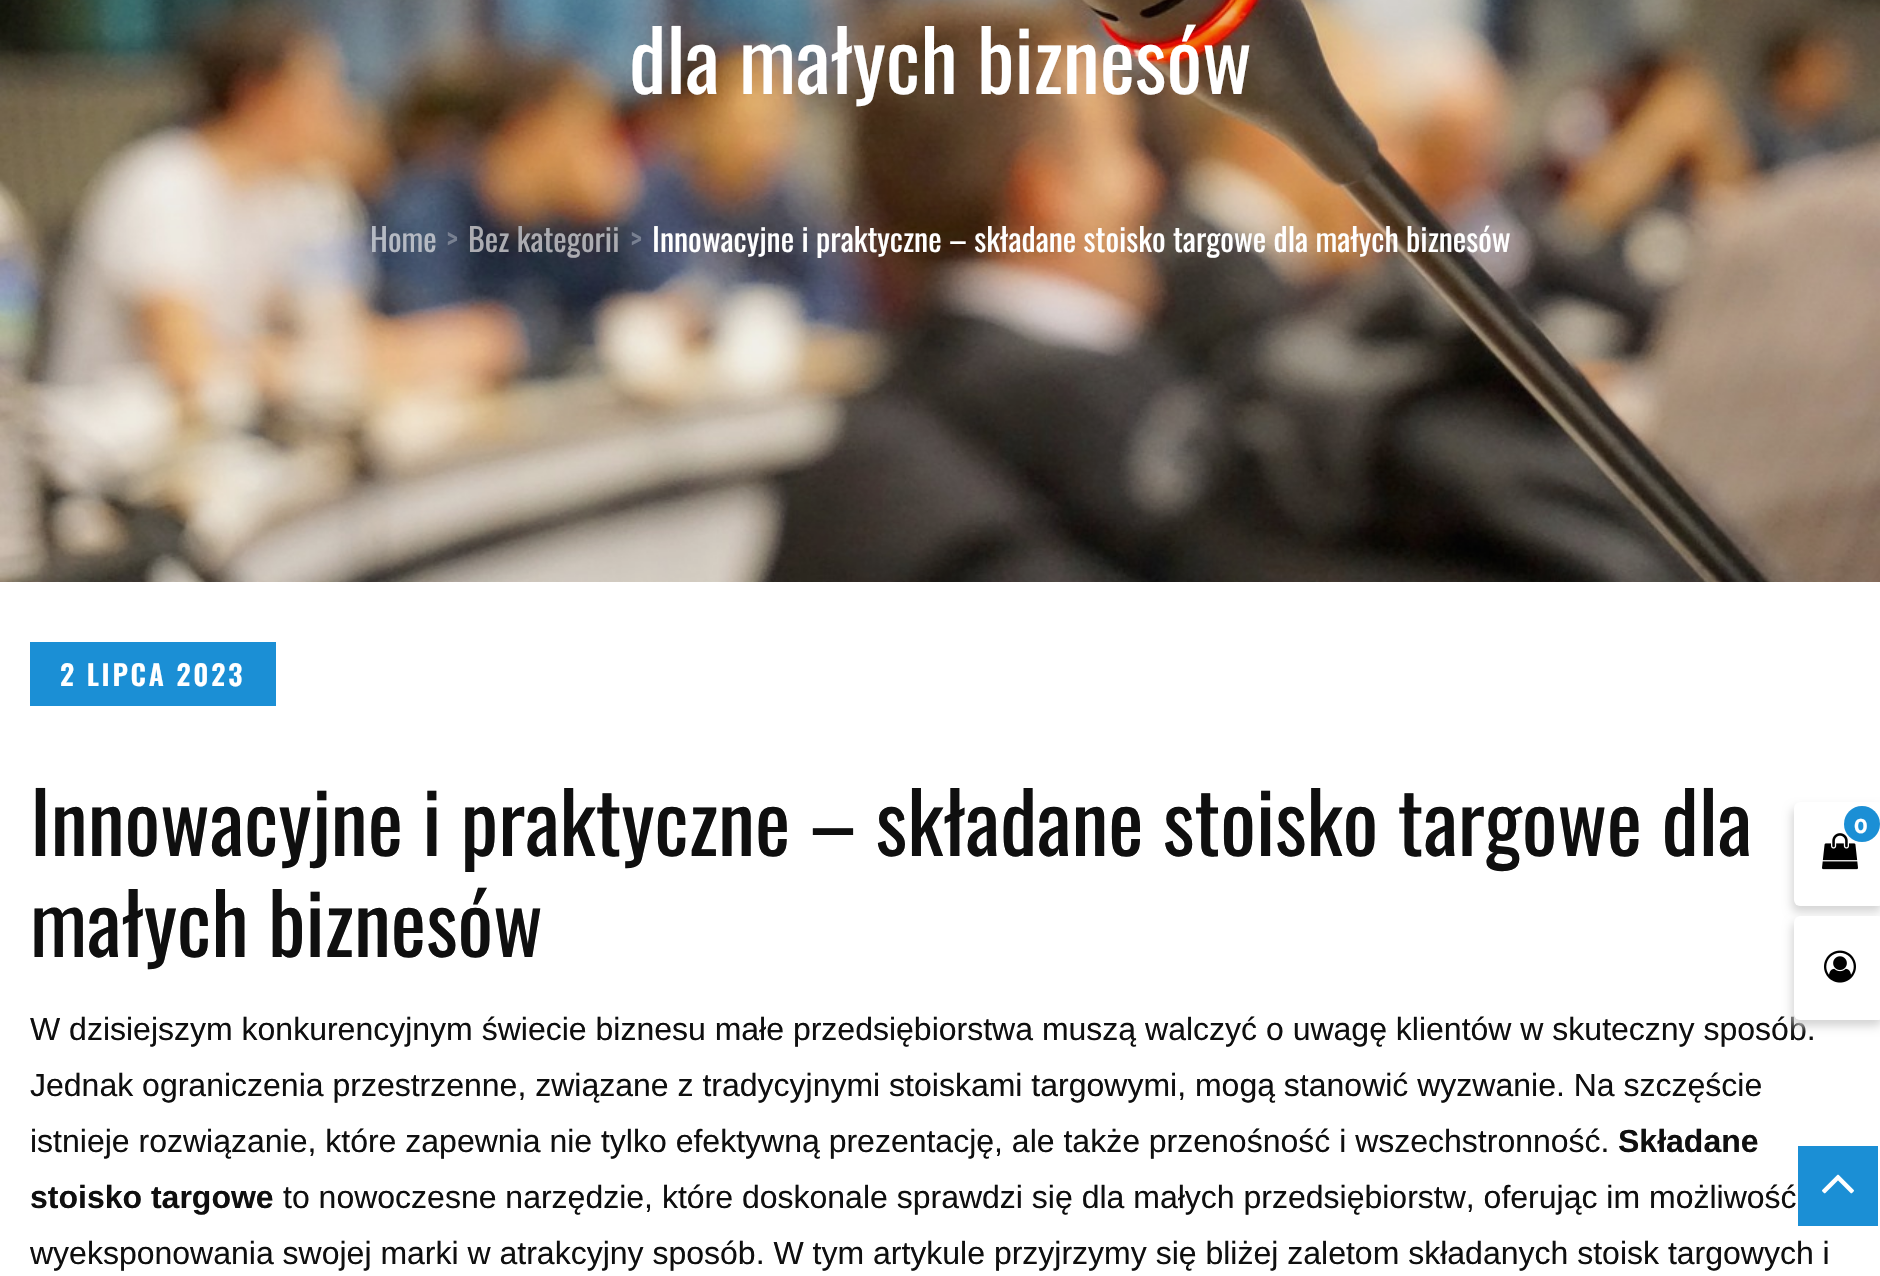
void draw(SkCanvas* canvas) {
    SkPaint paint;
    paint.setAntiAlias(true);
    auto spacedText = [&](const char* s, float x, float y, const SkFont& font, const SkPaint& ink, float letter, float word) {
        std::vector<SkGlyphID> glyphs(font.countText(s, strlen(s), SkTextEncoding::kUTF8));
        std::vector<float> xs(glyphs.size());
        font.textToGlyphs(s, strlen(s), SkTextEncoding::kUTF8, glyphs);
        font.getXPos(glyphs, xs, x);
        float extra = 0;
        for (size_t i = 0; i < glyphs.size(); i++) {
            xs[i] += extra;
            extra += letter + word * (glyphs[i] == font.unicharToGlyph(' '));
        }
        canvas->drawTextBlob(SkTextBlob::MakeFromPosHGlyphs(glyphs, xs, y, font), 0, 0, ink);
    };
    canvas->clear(0xFFFFFFFF);
    canvas->drawImageRect(SkImages::DeferredFromEncodedData(SkData::MakeFromFileName("img1.png")), SkRect::MakeXYWH(0, 0, 1880, 582), SkSamplingOptions());
    SkFont font1(fontMgr->matchFamilyStyle("Oswald", SkFontStyle::Normal()), 84);
    font1.setSubpixel(true);
    paint.setColor(0xFFFFFFFF);
    canvas->drawString("dla małych biznesów", 629, 94, font1, paint);
    SkFont font2(fontMgr->matchFamilyStyle("Oswald", SkFontStyle::Normal()), 32);
    font2.setSubpixel(true);
    paint.setColor(0xFFB5BAC3);
    canvas->drawString("Home", 370, 252, font2, paint);
    paint.setColor(0xFF788091);
    canvas->drawString(">", 446, 252, font2, paint);
    paint.setColor(0xFFACACB1);
    canvas->drawString("Bez kategorii", 468, 252, font2, paint);
    paint.setColor(0xFF788091);
    canvas->drawString(">", 630, 252, font2, paint);
    paint.setColor(0xFFFFFFFF);
    canvas->drawString("Innowacyjne i praktyczne – składane stoisko targowe dla małych biznesów", 652, 252, font2, paint);
    paint.setColor(0xFF1B8FD5);
    canvas->drawRect(SkRect::MakeXYWH(30, 642, 246, 64), paint);
    SkFont font3(fontMgr->matchFamilyStyle("Oswald", SkFontStyle(600, SkFontStyle::kNormal_Width, SkFontStyle::kUpright_Slant)), 28);
    font3.setSubpixel(true);
    paint.setColor(0xFFFFFFFF);
    spacedText("2 LIPCA 2023", 60, 686, font3, paint, 2.75f, 0);
    paint.setColor(0xFF0F0F0F);
    canvas->drawString("Innowacyjne i praktyczne – składane stoisko targowe dla", 30, 856, font1, paint);
    canvas->drawString("małych biznesów", 30, 957, font1, paint);
    SkFont font4(fontMgr->matchFamilyStyle("Liberation Sans", SkFontStyle::Normal()), 32);
    font4.setSubpixel(true);
    canvas->drawString("W dzisiejszym konkurencyjnym świecie biznesu małe przedsiębiorstwa muszą walczyć o uwagę klientów w skuteczny sposób.", 30, 1040, font4, paint);
    canvas->drawString("Jednak ograniczenia przestrzenne, związane z tradycyjnymi stoiskami targowymi, mogą stanowić wyzwanie. Na szczęście", 30, 1096, font4, paint);
    canvas->drawString("istnieje rozwiązanie, które zapewnia nie tylko efektywną prezentację, ale także przenośność i wszechstronność.", 30, 1152, font4, paint);
    SkFont font5(fontMgr->matchFamilyStyle("Liberation Sans", SkFontStyle::Bold()), 32);
    font5.setSubpixel(true);
    canvas->drawString("Składane", 1618, 1152, font5, paint);
    canvas->drawString("stoisko targowe", 30, 1208, font5, paint);
    canvas->drawString("to nowoczesne narzędzie, które doskonale sprawdzi się dla małych przedsiębiorstw, oferując im możliwość", 283, 1208, font4, paint);
    canvas->drawString("wyeksponowania swojej marki w atrakcyjny sposób. W tym artykule przyjrzymy się bliżej zaletom składanych stoisk targowych i", 30, 1264, font4, paint);
    paint.setColor(0xFFD4D4D4);
    paint.setMaskFilter(SkMaskFilter::MakeBlur(kNormal_SkBlurStyle, 5));
    canvas->drawRoundRect(SkRect::MakeXYWH(1792, 808, 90, 104), 6, 6, paint);
    paint.setMaskFilter(nullptr);
    paint.setColor(0xFFFFFFFF);
    canvas->drawRoundRect(SkRect::MakeXYWH(1794, 802, 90, 104), 6, 6, paint);
    canvas->drawImageRect(SkImages::DeferredFromEncodedData(SkData::MakeFromFileName("img2.png")), SkRect::MakeXYWH(1822, 833, 36, 37), SkSamplingOptions());
    paint.setColor(0xFF1B8FD5);
    canvas->drawCircle(1862, 824, 18, paint);
    SkFont font6(fontMgr->matchFamilyStyle("Montserrat", SkFontStyle::Bold()), 20);
    font6.setSubpixel(true);
    paint.setColor(0xFFFFFFFF);
    canvas->drawString("0", 1854, 833, font6, paint);
    paint.setColor(0xFFD4D4D4);
    paint.setMaskFilter(SkMaskFilter::MakeBlur(kNormal_SkBlurStyle, 5));
    canvas->drawRoundRect(SkRect::MakeXYWH(1792, 922, 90, 104), 6, 6, paint);
    paint.setMaskFilter(nullptr);
    paint.setColor(0xFFFFFFFF);
    canvas->drawRoundRect(SkRect::MakeXYWH(1794, 916, 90, 104), 6, 6, paint);
    canvas->drawImageRect(SkImages::DeferredFromEncodedData(SkData::MakeFromFileName("img3.png")), SkRect::MakeXYWH(1824, 950, 32, 33), SkSamplingOptions());
    paint.setColor(0xFF1B8FD5);
    canvas->drawRect(SkRect::MakeXYWH(1798, 1146, 80, 80), paint);
    canvas->drawImageRect(SkImages::DeferredFromEncodedData(SkData::MakeFromFileName("img4.png")), SkRect::MakeXYWH(1822, 1174, 32, 20), SkSamplingOptions());
}
